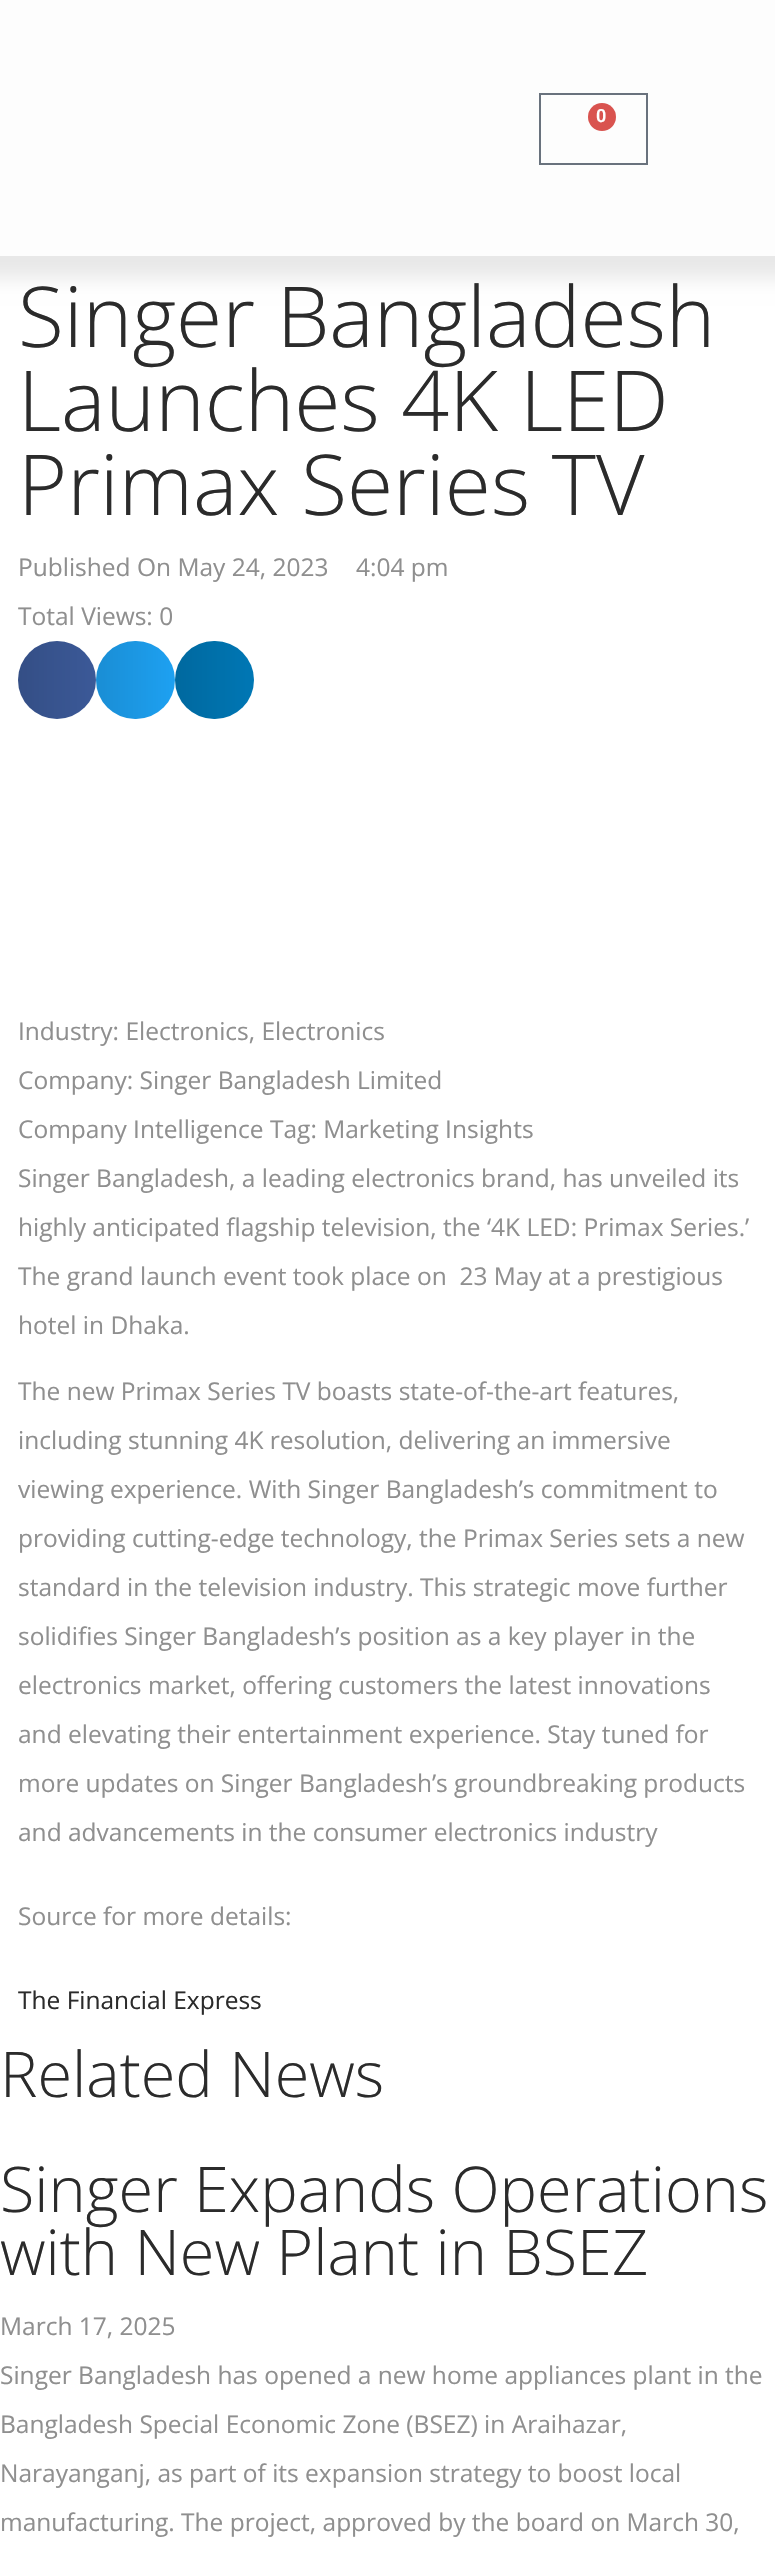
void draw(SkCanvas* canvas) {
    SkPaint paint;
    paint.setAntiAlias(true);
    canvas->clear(0xFFFFFFFF);
    paint.setColor(0x17000000);
    paint.setMaskFilter(SkMaskFilter::MakeBlur(kNormal_SkBlurStyle, 9.5f));
    canvas->drawRect(SkRect::MakeXYWH(-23, -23, 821, 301), paint);
    paint.setMaskFilter(nullptr);
    paint.setColor(0xFFFDFDFD);
    canvas->drawRect(SkRect::MakeXYWH(0, 0, 775, 256), paint);
    paint.setStyle(SkPaint::kStroke_Style);
    paint.setStrokeWidth(2);
    paint.setColor(0xFF69727D);
    canvas->drawRect(SkRect::MakeXYWH(540, 94, 107, 70), paint);
    paint.setStyle(SkPaint::kFill_Style);
    paint.setColor(0xFFD9534F);
    canvas->drawCircle(602, 117, 14, paint);
    SkFont font1(fontMgr->matchFamilyStyle("Roboto", SkFontStyle(600, SkFontStyle::kNormal_Width, SkFontStyle::kUpright_Slant)), 18);
    font1.setSubpixel(true);
    paint.setColor(0xFFFFFFFF);
    canvas->drawString("0", 596, 122, font1, paint);
    SkFont font2(fontMgr->matchFamilyStyle("Open Sans", SkFontStyle(300, SkFontStyle::kNormal_Width, SkFontStyle::kUpright_Slant)), 84);
    font2.setSubpixel(true);
    paint.setColor(0xFF2B2B2B);
    canvas->drawString("Singer Bangladesh", 18, 347, font2, paint);
    canvas->drawString("Launches 4K LED", 18, 431, font2, paint);
    canvas->drawString("Primax Series TV", 18, 515, font2, paint);
    SkFont font3(fontMgr->matchFamilyStyle("Open Sans", SkFontStyle::Normal()), 24.5f);
    font3.setSubpixel(true);
    paint.setColor(0xFF8F8F8F);
    canvas->drawString("Published On May 24, 2023", 18, 576, font3, paint);
    canvas->drawString("4:04 pm", 356, 576, font3, paint);
    canvas->drawString("Total Views: 0", 18, 625, font3, paint);
    paint.setColor(0xFF3B5998);
    canvas->drawCircle(57, 680, 39, paint);
    {
        const SkColor colors[] = {0x1F000000, 0x00000000};
        const float stops[] = {0, 1};
        const SkPoint ends[] = {{18, 680}, {96, 680}};
        paint.setShader(SkGradientShader::MakeLinear(ends, colors, stops, 2, SkTileMode::kClamp));
        paint.setAlpha(255);
    }
    canvas->drawCircle(57, 680, 39, paint);
    paint.setShader(nullptr);
    paint.setColor(0xFF1DA1F2);
    canvas->drawRoundRect(SkRect::MakeXYWH(96, 641, 79, 78), 39, 39, paint);
    {
        const SkColor colors[] = {0x1F000000, 0x00000000};
        const float stops[] = {0, 1};
        const SkPoint ends[] = {{96, 680}, {175, 680}};
        paint.setShader(SkGradientShader::MakeLinear(ends, colors, stops, 2, SkTileMode::kClamp));
        paint.setAlpha(255);
    }
    canvas->drawRoundRect(SkRect::MakeXYWH(96, 641, 79, 78), 39, 39, paint);
    paint.setShader(nullptr);
    paint.setColor(0xFF0077B5);
    canvas->drawRoundRect(SkRect::MakeXYWH(175, 641, 79, 78), 39, 39, paint);
    {
        const SkColor colors[] = {0x1F000000, 0x00000000};
        const float stops[] = {0, 1};
        const SkPoint ends[] = {{175, 680}, {254, 680}};
        paint.setShader(SkGradientShader::MakeLinear(ends, colors, stops, 2, SkTileMode::kClamp));
        paint.setAlpha(255);
    }
    canvas->drawRoundRect(SkRect::MakeXYWH(175, 641, 79, 78), 39, 39, paint);
    paint.setShader(nullptr);
    paint.setColor(0xFF8F8F8F);
    canvas->drawString("Industry: Electronics, Electronics", 18, 1040, font3, paint);
    canvas->drawString("Company: Singer Bangladesh Limited", 18, 1089, font3, paint);
    canvas->drawString("Company Intelligence Tag: Marketing Insights", 18, 1138, font3, paint);
    canvas->drawString("Singer Bangladesh, a leading electronics brand, has unveiled its", 18, 1187, font3, paint);
    canvas->drawString("highly anticipated flagship television, the ‘4K LED: Primax Series.’", 18, 1236, font3, paint);
    canvas->drawString("The grand launch event took place on  23 May at a prestigious", 18, 1285, font3, paint);
    canvas->drawString("hotel in Dhaka.", 18, 1334, font3, paint);
    canvas->drawString("The new Primax Series TV boasts state-of-the-art features,", 18, 1400, font3, paint);
    canvas->drawString("including stunning 4K resolution, delivering an immersive", 18, 1449, font3, paint);
    canvas->drawString("viewing experience. With Singer Bangladesh’s commitment to", 18, 1498, font3, paint);
    canvas->drawString("providing cutting-edge technology, the Primax Series sets a new", 18, 1547, font3, paint);
    canvas->drawString("standard in the television industry. This strategic move further", 18, 1596, font3, paint);
    canvas->drawString("solidifies Singer Bangladesh’s position as a key player in the", 18, 1645, font3, paint);
    canvas->drawString("electronics market, offering customers the latest innovations", 18, 1694, font3, paint);
    canvas->drawString("and elevating their entertainment experience. Stay tuned for", 18, 1743, font3, paint);
    canvas->drawString("more updates on Singer Bangladesh’s groundbreaking products", 18, 1792, font3, paint);
    canvas->drawString("and advancements in the consumer electronics industry", 18, 1841, font3, paint);
    canvas->drawString("Source for more details:", 18, 1925, font3, paint);
    paint.setColor(0xFF2B2B2B);
    canvas->drawString("The Financial Express", 18, 2009, font3, paint);
    SkFont font4(fontMgr->matchFamilyStyle("Open Sans", SkFontStyle(300, SkFontStyle::kNormal_Width, SkFontStyle::kUpright_Slant)), 63);
    font4.setSubpixel(true);
    canvas->drawString("Related News", 0, 2097, font4, paint);
    canvas->drawString("Singer Expands Operations", 0, 2212, font4, paint);
    canvas->drawString("with New Plant in BSEZ", 0, 2275, font4, paint);
    paint.setColor(0xFF8F8F8F);
    canvas->drawString("March 17, 2025", 0, 2335, font3, paint);
    canvas->drawString("Singer Bangladesh has opened a new home appliances plant in the", 0, 2384, font3, paint);
    canvas->drawString("Bangladesh Special Economic Zone (BSEZ) in Araihazar,", 0, 2433, font3, paint);
    canvas->drawString("Narayanganj, as part of its expansion strategy to boost local", 0, 2482, font3, paint);
    canvas->drawString("manufacturing. The project, approved by the board on March 30,", 0, 2531, font3, paint);
}
